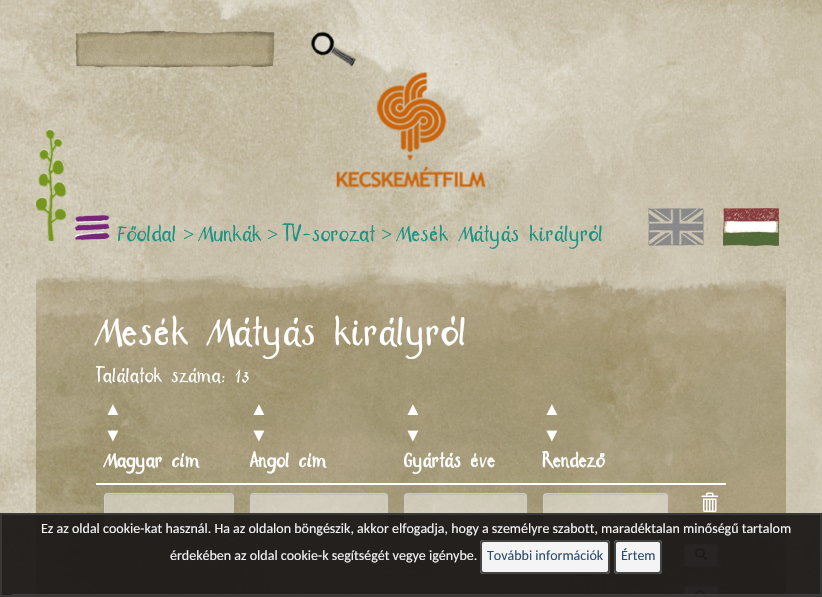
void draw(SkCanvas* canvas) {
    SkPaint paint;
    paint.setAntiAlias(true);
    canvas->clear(0xFFFFFFFF);
    canvas->drawImageRect(SkImages::DeferredFromEncodedData(SkData::MakeFromFileName("img1.png")), SkRect::MakeXYWH(0, 0, 822, 597), SkSamplingOptions());
    canvas->drawImageRect(SkImages::DeferredFromEncodedData(SkData::MakeFromFileName("img2.png")), SkRect::MakeXYWH(75, 30, 200, 38), SkSamplingOptions());
    canvas->drawImageRect(SkImages::DeferredFromEncodedData(SkData::MakeFromFileName("img3.png")), SkRect::MakeXYWH(310, 31, 46, 36), SkSamplingOptions());
    canvas->drawImageRect(SkImages::DeferredFromEncodedData(SkData::MakeFromFileName("img4.png")), SkRect::MakeXYWH(336, 72, 150, 116), SkSamplingOptions());
    canvas->drawImageRect(SkImages::DeferredFromEncodedData(SkData::MakeFromFileName("img5.png")), SkRect::MakeXYWH(36, 129, 30, 112), SkSamplingOptions());
    canvas->drawImageRect(SkImages::DeferredFromEncodedData(SkData::MakeFromFileName("img6.png")), SkRect::MakeXYWH(75, 215, 35, 26), SkSamplingOptions());
    SkFont font1(fontMgr->matchFamilyStyle("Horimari", SkFontStyle::Normal()), 20);
    font1.setSubpixel(true);
    paint.setColor(0xFF1B9383);
    canvas->drawString("Főoldal", 118, 241, font1, paint);
    SkFont font2(fontMgr->matchFamilyStyle("Liberation Serif", SkFontStyle::Normal()), 20);
    font2.setSubpixel(true);
    canvas->drawString(">", 183, 241, font2, paint);
    canvas->drawString("Munkák", 199, 241, font1, paint);
    canvas->drawString(">", 267, 241, font2, paint);
    canvas->drawString("TV-sorozat", 284, 241, font1, paint);
    canvas->drawString(">", 381, 241, font2, paint);
    canvas->drawString("Mesék Mátyás királyról", 397, 241, font1, paint);
    canvas->drawImageRect(SkImages::DeferredFromEncodedData(SkData::MakeFromFileName("img7.png")), SkRect::MakeXYWH(648, 208, 56, 38), SkSamplingOptions());
    canvas->drawImageRect(SkImages::DeferredFromEncodedData(SkData::MakeFromFileName("img8.png")), SkRect::MakeXYWH(723, 208, 56, 38), SkSamplingOptions());
    canvas->drawImageRect(SkImages::DeferredFromEncodedData(SkData::MakeFromFileName("img9.png")), SkRect::MakeXYWH(36, 271, 750, 326), SkSamplingOptions());
    SkFont font3(fontMgr->matchFamilyStyle("Horimari", SkFontStyle::Normal()), 36);
    font3.setSubpixel(true);
    paint.setColor(0xFFFFFFFF);
    canvas->drawString("Mesék Mátyás királyról", 96, 345, font3, paint);
    canvas->save();
    canvas->clipRect(SkRect::MakeXYWH(96, 365, 630, 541));
    SkFont font4(fontMgr->matchFamilyStyle("Horimari", SkFontStyle::Normal()), 18);
    font4.setSubpixel(true);
    canvas->drawString("Találatok száma:", 96, 382, font4, paint);
    canvas->restore();
    canvas->drawString("13", 236, 382, font4, paint);
    SkFont font5(fontMgr->matchFamilyStyle("Liberation Serif", SkFontStyle::Bold()), 18);
    font5.setSubpixel(true);
    canvas->drawString("▲", 104, 415, font5, paint);
    canvas->drawString("▼", 104, 441, font5, paint);
    SkFont font6(fontMgr->matchFamilyStyle("Horimari", SkFontStyle::Bold()), 18);
    font6.setSubpixel(true);
    canvas->drawString("Magyar cím", 104, 467, font6, paint);
    canvas->drawString("▲", 250, 415, font5, paint);
    canvas->drawString("▼", 250, 441, font5, paint);
    canvas->drawString("Angol cím", 250, 467, font6, paint);
    canvas->drawString("▲", 404, 415, font5, paint);
    canvas->drawString("▼", 404, 441, font5, paint);
    canvas->drawString("Gyártás éve", 404, 467, font6, paint);
    canvas->drawString("▲", 543, 415, font5, paint);
    canvas->drawString("▼", 543, 441, font5, paint);
    canvas->drawString("Rendező", 543, 467, font6, paint);
    canvas->drawRect(SkRect::MakeXYWH(96, 483, 630, 2), paint);
    paint.setColor(0x78FFFFFF);
    canvas->drawRoundRect(SkRect::MakeXYWH(104, 493, 130, 34), 4, 4, paint);
    paint.setColor(0x12000000);
    canvas->drawPath(SkPathBuilder().moveTo(108, 495).lineTo(230, 495).cubicTo(232, 495, 233, 496, 233, 498).cubicTo(233, 496, 233, 494, 231, 494).lineTo(108, 494).cubicTo(106, 494, 105, 496, 105, 498).cubicTo(105, 496, 106, 495, 108, 495).close().detach(), paint);
    paint.setStyle(SkPaint::kStroke_Style);
    paint.setStrokeWidth(1);
    paint.setColor(0xFFCCCCCC);
    canvas->drawRoundRect(SkRect::MakeXYWH(104.5f, 493.5f, 129, 33), 3.5f, 3.5f, paint);
    paint.setStyle(SkPaint::kFill_Style);
    paint.setColor(0x78FFFFFF);
    canvas->drawRoundRect(SkRect::MakeXYWH(250, 493, 138, 34), 4, 4, paint);
    paint.setColor(0x12000000);
    canvas->drawPath(SkPathBuilder().moveTo(254, 495).lineTo(384, 495).cubicTo(386, 495, 387, 496, 387, 498).cubicTo(387, 496, 387, 494, 385, 494).lineTo(253, 494).cubicTo(251, 494, 251, 496, 251, 498).cubicTo(251, 496, 252, 495, 254, 495).close().detach(), paint);
    paint.setStyle(SkPaint::kStroke_Style);
    paint.setColor(0xFFCCCCCC);
    canvas->drawRoundRect(SkRect::MakeXYWH(250.5f, 493.5f, 137, 33), 3.5f, 3.5f, paint);
    paint.setStyle(SkPaint::kFill_Style);
    paint.setColor(0x78FFFFFF);
    canvas->drawRoundRect(SkRect::MakeXYWH(404, 493, 123, 34), 4, 4, paint);
    paint.setColor(0x12000000);
    canvas->drawPath(SkPathBuilder().moveTo(408, 495).lineTo(523, 495).cubicTo(525, 495, 526, 496, 526, 498).cubicTo(526, 496, 525, 494, 523, 494).lineTo(427, 494).cubicTo(426, 494, 405, 489, 405, 498).cubicTo(405, 496, 406, 495, 408, 495).close().detach(), paint);
    paint.setStyle(SkPaint::kStroke_Style);
    paint.setColor(0xFFCCCCCC);
    canvas->drawRoundRect(SkRect::MakeXYWH(404.5f, 493.5f, 122, 33), 3.5f, 3.5f, paint);
    paint.setStyle(SkPaint::kFill_Style);
    paint.setColor(0x78FFFFFF);
    canvas->drawRoundRect(SkRect::MakeXYWH(543, 493, 125, 34), 4, 4, paint);
    paint.setColor(0x12000000);
    canvas->drawPath(SkPathBuilder().moveTo(547, 495).lineTo(664, 495).cubicTo(666, 495, 667, 496, 667, 498).cubicTo(667, 496, 666, 494, 664, 494).lineTo(566, 494).cubicTo(566, 494, 544, 489, 544, 498).cubicTo(544, 496, 545, 495, 547, 495).close().detach(), paint);
    paint.setStyle(SkPaint::kStroke_Style);
    paint.setColor(0xFFCCCCCC);
    canvas->drawRoundRect(SkRect::MakeXYWH(543.5f, 493.5f, 124, 33), 3.5f, 3.5f, paint);
    canvas->drawImageRect(SkImages::DeferredFromEncodedData(SkData::MakeFromFileName("img10.png")), SkRect::MakeXYWH(701, 492, 17, 20), SkSamplingOptions());
    paint.setStyle(SkPaint::kFill_Style);
    paint.setColor(0xFFFFFFFF);
    canvas->drawRoundRect(SkRect::MakeXYWH(684.5f, 544.5f, 33, 22), 2.5f, 2.5f, paint);
    paint.setStyle(SkPaint::kStroke_Style);
    paint.setColor(0xFFCCCCCC);
    canvas->drawRoundRect(SkRect::MakeXYWH(684.5f, 544.5f, 33, 22), 2.5f, 2.5f, paint);
    canvas->drawImageRect(SkImages::DeferredFromEncodedData(SkData::MakeFromFileName("img11.png")), SkRect::MakeXYWH(695, 548, 12, 12), SkSamplingOptions());
    paint.setStyle(SkPaint::kFill_Style);
    paint.setColor(0xFFFFFFFF);
    canvas->drawRoundRect(SkRect::MakeXYWH(684.5f, 586.5f, 33, 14), 2.5f, 2.5f, paint);
    paint.setStyle(SkPaint::kStroke_Style);
    paint.setColor(0xFFCCCCCC);
    canvas->drawRoundRect(SkRect::MakeXYWH(684.5f, 586.5f, 33, 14), 2.5f, 2.5f, paint);
    canvas->drawImageRect(SkImages::DeferredFromEncodedData(SkData::MakeFromFileName("img12.png")), SkRect::MakeXYWH(695, 590, 10, 7), SkSamplingOptions());
    paint.setStyle(SkPaint::kFill_Style);
    paint.setColor(0xF21B1817);
    canvas->drawRect(SkRect::MakeXYWH(0, 513, 822, 84), paint);
    paint.setStyle(SkPaint::kStroke_Style);
    paint.setStrokeWidth(2);
    paint.setColor(0xF23A3A38);
    canvas->drawRect(SkRect::MakeXYWH(1, 514, 820, 82), paint);
    paint.setStyle(SkPaint::kFill_Style);
    paint.setColor(0x24E6E6E6);
    canvas->drawRect(SkRect::MakeXYWH(12, 594, 808, 1), paint);
    SkFont font7(fontMgr->matchFamilyStyle("Carlito", SkFontStyle::Normal()), 14);
    font7.setSubpixel(true);
    paint.setColor(0xFFF4F4F4);
    canvas->drawString("Ez az oldal cookie-kat használ. Ha az oldalon böngészik, akkor elfogadja, hogy a személyre szabott, maradéktalan minőségű tartalom", 41, 533, font7, paint);
    canvas->drawString("érdekében az oldal cookie-k segítségét vegye igénybe.", 170, 560, font7, paint);
    paint.setColor(0xF2FFFFFF);
    canvas->drawRoundRect(SkRect::MakeXYWH(480, 540, 130, 34), 4, 4, paint);
    paint.setStyle(SkPaint::kStroke_Style);
    paint.setColor(0xF23A3A38);
    canvas->drawRoundRect(SkRect::MakeXYWH(481, 541, 128, 32), 3, 3, paint);
    paint.setStyle(SkPaint::kFill_Style);
    paint.setColor(0xFF2C4F71);
    canvas->drawString("További információk", 487, 560, font7, paint);
    paint.setColor(0xFFF4F4F4);
    canvas->drawRoundRect(SkRect::MakeXYWH(614, 540, 48, 34), 4, 4, paint);
    paint.setStyle(SkPaint::kStroke_Style);
    paint.setColor(0xF23A3A38);
    canvas->drawRoundRect(SkRect::MakeXYWH(615, 541, 46, 32), 3, 3, paint);
    paint.setStyle(SkPaint::kFill_Style);
    paint.setColor(0xFF2C4F71);
    canvas->drawString("Értem", 621, 560, font7, paint);
}
